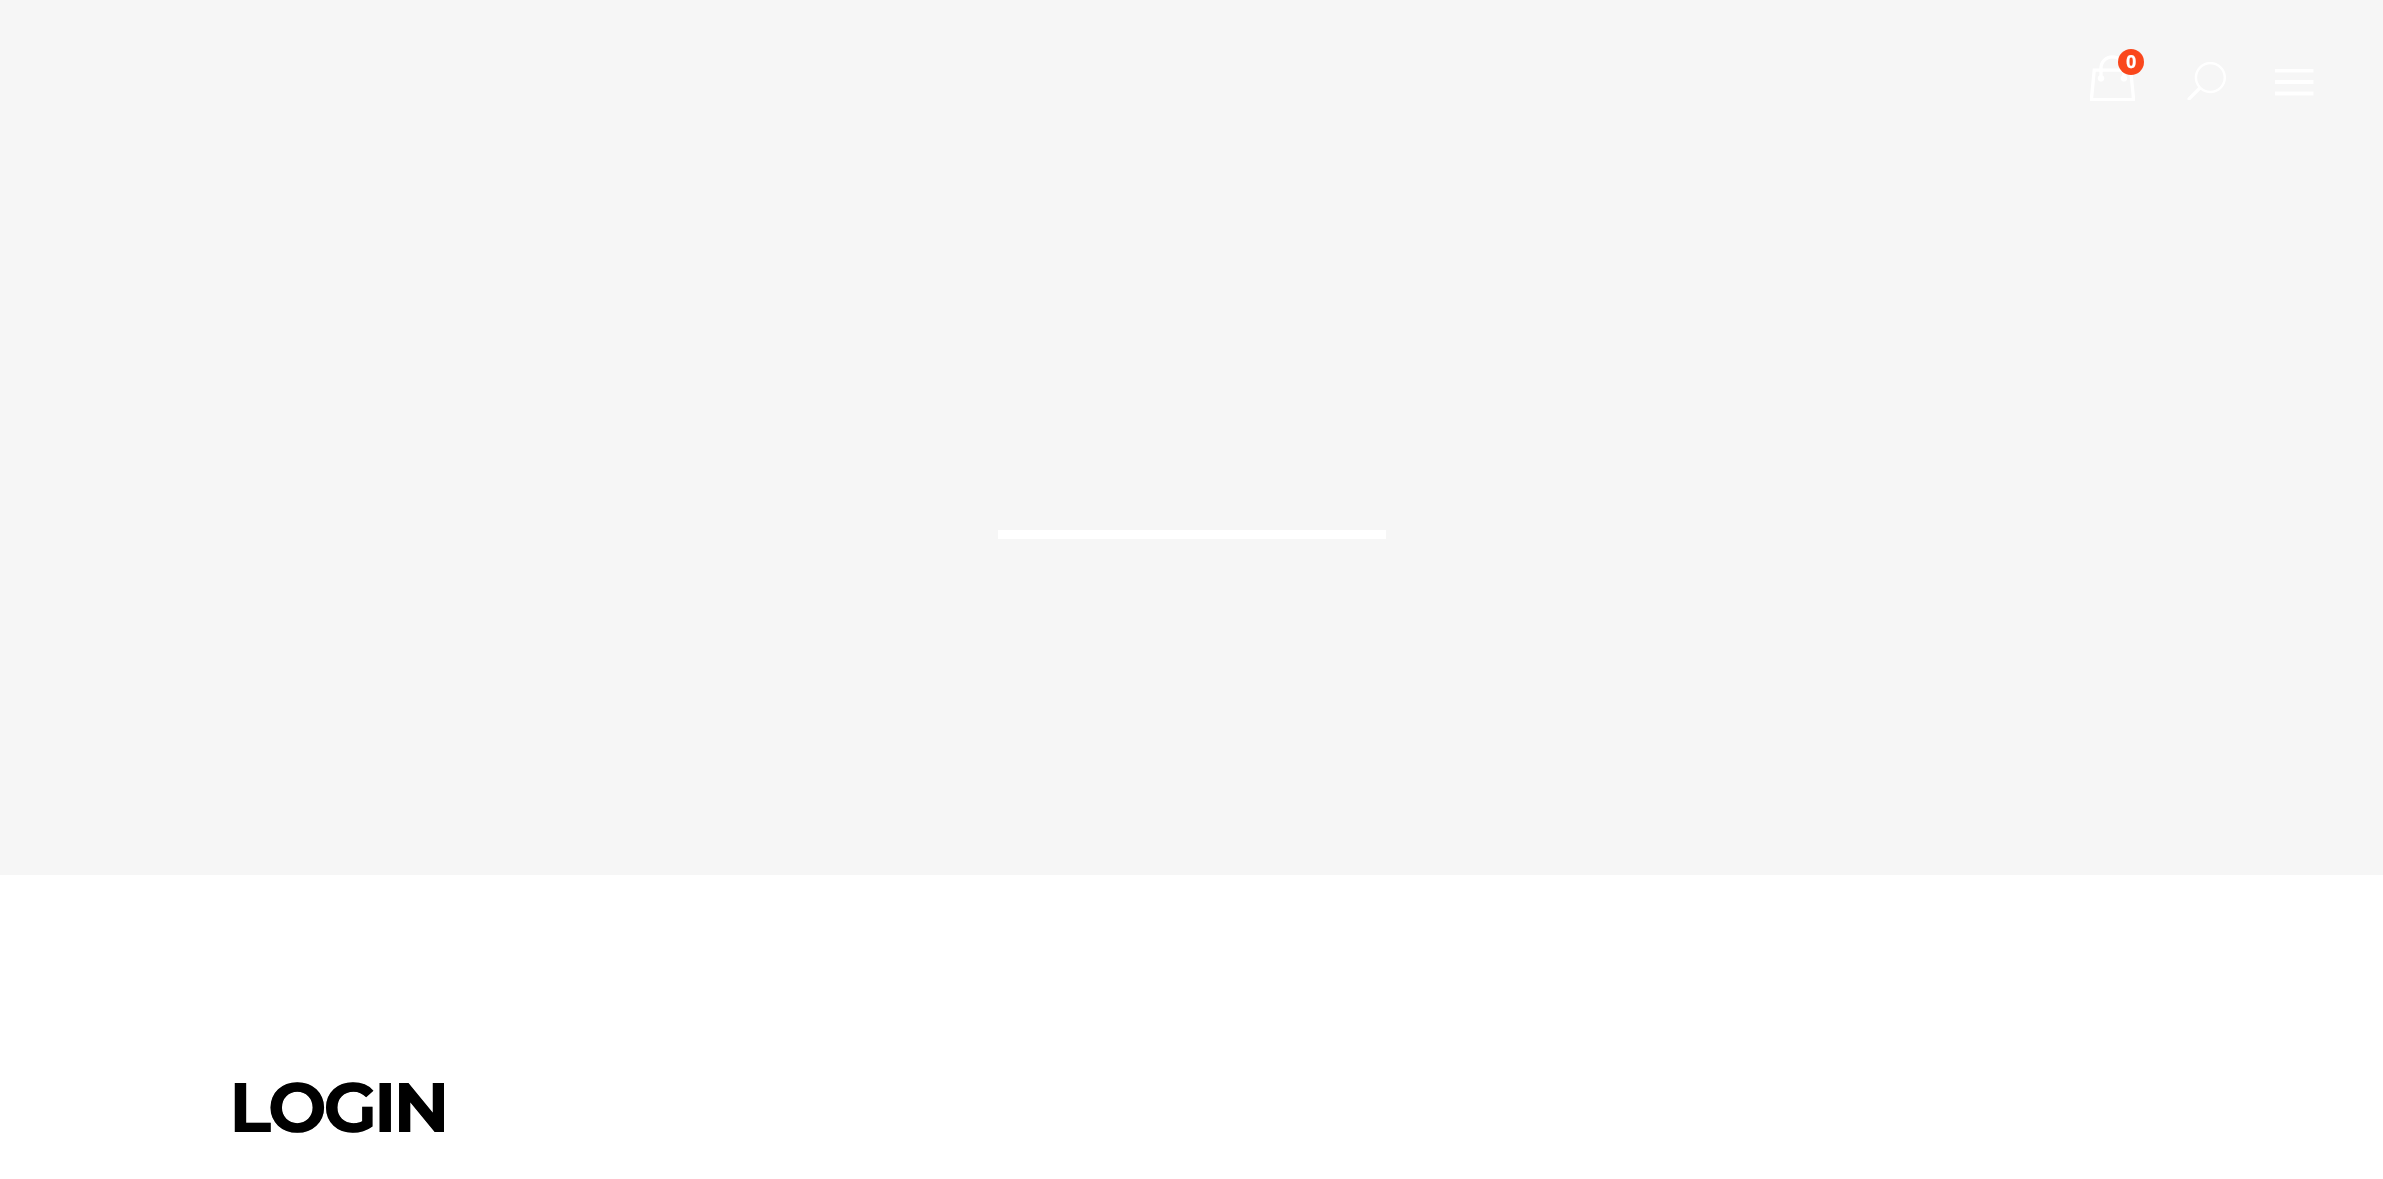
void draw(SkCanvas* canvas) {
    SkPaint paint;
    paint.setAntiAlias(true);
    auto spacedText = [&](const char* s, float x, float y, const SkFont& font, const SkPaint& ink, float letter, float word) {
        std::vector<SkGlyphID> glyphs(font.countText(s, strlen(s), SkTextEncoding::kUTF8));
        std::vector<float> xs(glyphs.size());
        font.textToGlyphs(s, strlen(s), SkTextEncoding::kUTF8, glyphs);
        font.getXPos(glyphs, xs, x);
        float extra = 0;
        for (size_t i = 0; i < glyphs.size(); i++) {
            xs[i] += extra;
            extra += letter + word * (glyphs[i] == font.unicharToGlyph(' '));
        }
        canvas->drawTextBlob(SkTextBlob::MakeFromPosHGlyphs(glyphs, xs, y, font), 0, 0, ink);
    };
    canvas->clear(0xFFFFFFFF);
    paint.setColor(0xFFF6F6F6);
    canvas->drawRect(SkRect::MakeXYWH(0, 0, 2383, 875), paint);
    canvas->drawImageRect(SkImages::DeferredFromEncodedData(SkData::MakeFromFileName("img1.png")), SkRect::MakeXYWH(2090, 55, 45, 46), SkSamplingOptions());
    paint.setColor(0xFFFA471C);
    canvas->drawCircle(2131, 62, 13, paint);
    SkFont font1(fontMgr->matchFamilyStyle("Open Sans", SkFontStyle::Bold()), 18);
    font1.setSubpixel(true);
    paint.setColor(0xFFFFFFFF);
    canvas->drawString("0", 2126, 68, font1, paint);
    canvas->drawImageRect(SkImages::DeferredFromEncodedData(SkData::MakeFromFileName("img2.png")), SkRect::MakeXYWH(2187, 62, 39, 38), SkSamplingOptions());
    canvas->drawPath(SkPathBuilder().moveTo(2275, 84).lineTo(2275, 80).lineTo(2313.5f, 80).lineTo(2313.5f, 84).close().moveTo(2275, 72.5f).lineTo(2275, 69).lineTo(2313.5f, 69).lineTo(2313.5f, 72.5f).close().moveTo(2275, 95.5f).lineTo(2275, 91.5f).lineTo(2313.5f, 91.5f).lineTo(2313.5f, 95.5f).close().detach(), paint);
    canvas->drawRect(SkRect::MakeXYWH(998, 530, 388, 9), paint);
    SkFont font2(fontMgr->matchFamilyStyle("Montserrat", SkFontStyle::Bold()), 70);
    font2.setSubpixel(true);
    paint.setColor(0xFF000000);
    spacedText("LOGIN", 229, 1132, font2, paint, -3.5f, 0);
}
